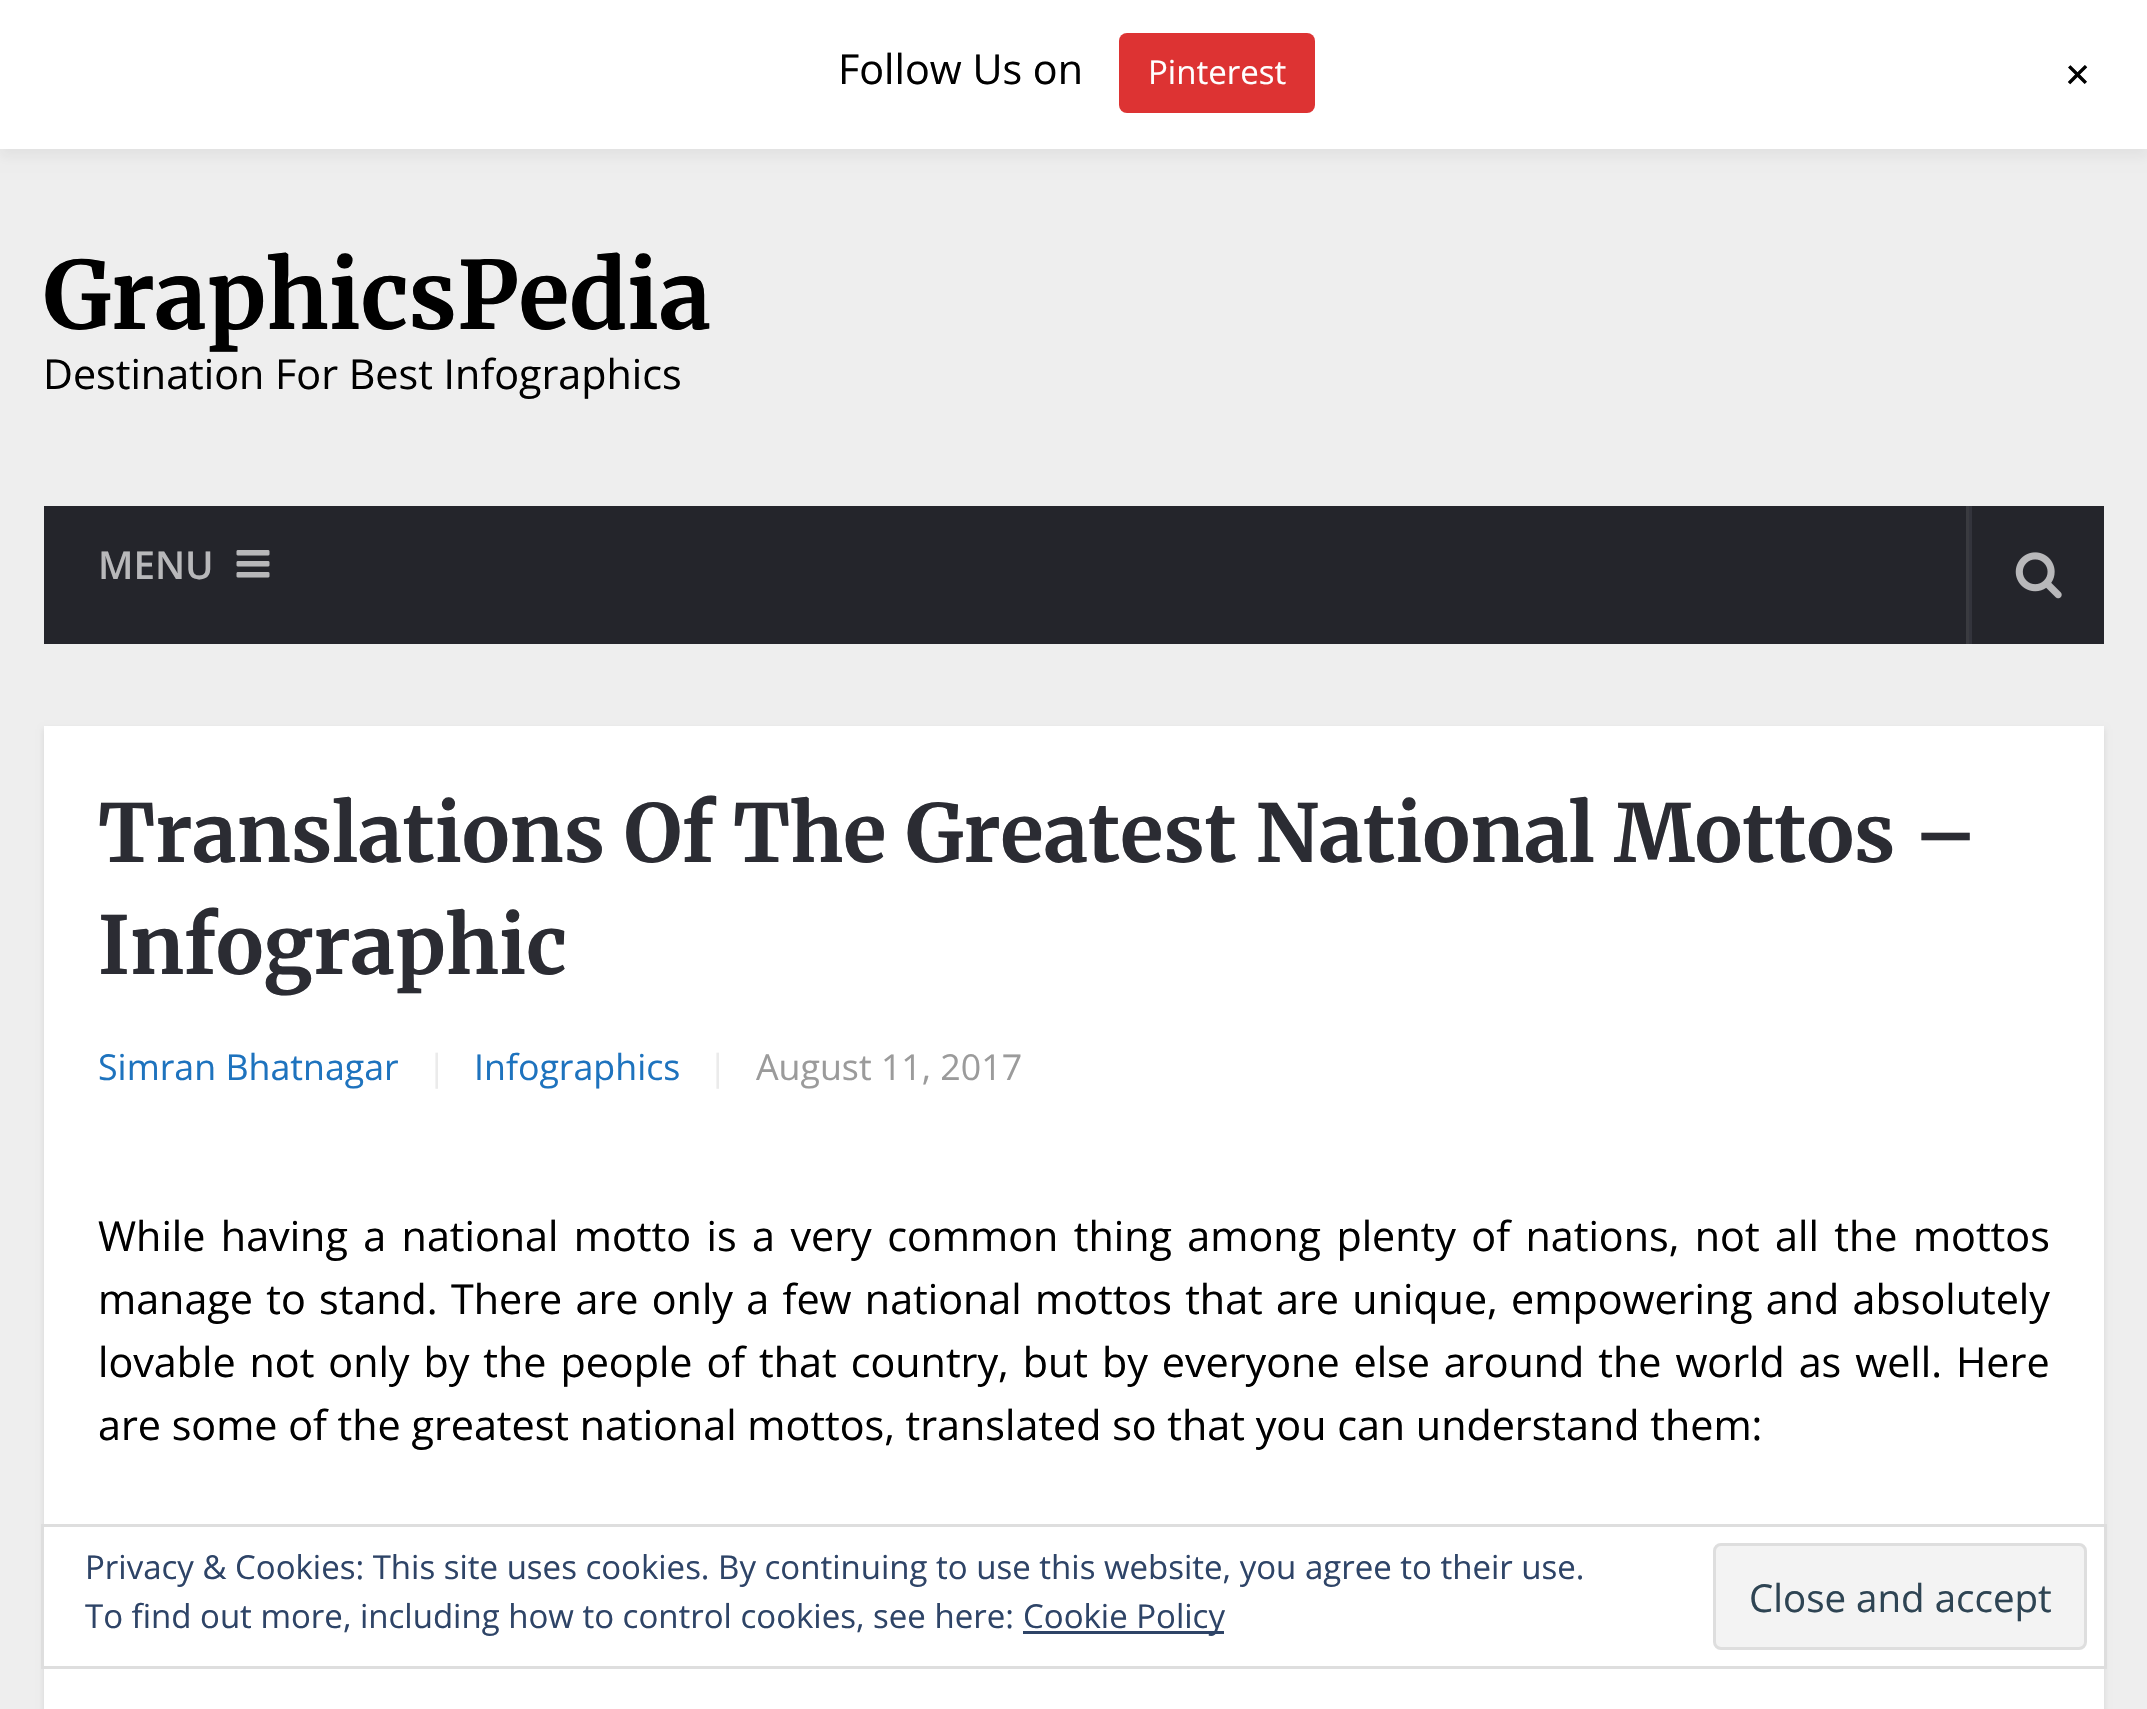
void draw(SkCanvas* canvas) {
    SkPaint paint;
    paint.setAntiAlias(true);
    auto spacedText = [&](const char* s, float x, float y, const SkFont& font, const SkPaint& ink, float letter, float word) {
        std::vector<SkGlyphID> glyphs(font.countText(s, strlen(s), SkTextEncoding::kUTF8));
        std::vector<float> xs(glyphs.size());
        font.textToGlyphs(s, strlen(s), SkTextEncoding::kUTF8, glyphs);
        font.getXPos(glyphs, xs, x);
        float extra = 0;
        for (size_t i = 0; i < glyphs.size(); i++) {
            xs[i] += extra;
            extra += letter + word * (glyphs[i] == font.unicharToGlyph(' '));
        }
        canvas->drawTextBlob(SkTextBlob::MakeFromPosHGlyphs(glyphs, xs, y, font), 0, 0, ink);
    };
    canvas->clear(0xFFEEEEEE);
    paint.setColor(0x0D000000);
    paint.setMaskFilter(SkMaskFilter::MakeBlur(kNormal_SkBlurStyle, 5.5f));
    canvas->drawRect(SkRect::MakeXYWH(0, 8, 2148, 149), paint);
    paint.setMaskFilter(nullptr);
    paint.setColor(0xFFFFFFFF);
    canvas->drawRect(SkRect::MakeXYWH(0, 0, 2147, 149), paint);
    SkFont font1(fontMgr->matchFamilyStyle("Open Sans", SkFontStyle::Normal()), 41.25f);
    font1.setSubpixel(true);
    paint.setColor(0xFF000000);
    canvas->drawString("Follow Us on", 838, 84, font1, paint);
    paint.setColor(0xFFDD3333);
    canvas->drawRoundRect(SkRect::MakeXYWH(1119, 33, 196, 80), 8, 8, paint);
    SkFont font2(fontMgr->matchFamilyStyle("Open Sans", SkFontStyle::Normal()), 33);
    font2.setSubpixel(true);
    paint.setColor(0xFFFFFFFF);
    canvas->drawString("Pinterest", 1148, 84, font2, paint);
    SkFont font3(fontMgr->matchFamilyStyle("Open Sans", SkFontStyle::Normal()), 50);
    font3.setSubpixel(true);
    paint.setColor(0xFF000000);
    canvas->save();
    canvas->rotate(45, 2055, 77);
    canvas->drawString("+", 2055, 77, font3, paint);
    canvas->restore();
    SkFont font4(fontMgr->matchFamilyStyle("Merriweather", SkFontStyle(300, SkFontStyle::kNormal_Width, SkFontStyle::kUpright_Slant)), 93.5f);
    font4.setSubpixel(true);
    canvas->drawString("GraphicsPedia", 43, 329, font4, paint);
    canvas->drawString("Destination For Best Infographics", 43, 389, font1, paint);
    paint.setColor(0xFF24252B);
    canvas->drawRect(SkRect::MakeXYWH(44, 506, 2060, 138), paint);
    SkFont font5(fontMgr->matchFamilyStyle("Open Sans", SkFontStyle(600, SkFontStyle::kNormal_Width, SkFontStyle::kUpright_Slant)), 38.5f);
    font5.setSubpixel(true);
    paint.setColor(0xFFB8B8BA);
    canvas->drawString("MENU", 98, 579, font5, paint);
    canvas->drawImageRect(SkImages::DeferredFromEncodedData(SkData::MakeFromFileName("img1.png")), SkRect::MakeXYWH(236, 550, 34, 28), SkSamplingOptions());
    paint.setColor(0xFF3A3B40);
    canvas->drawRect(SkRect::MakeXYWH(1966, 506, 3, 138), paint);
    paint.setColor(0xFF33343C);
    canvas->drawRect(SkRect::MakeXYWH(1969, 506, 3, 138), paint);
    canvas->drawImageRect(SkImages::DeferredFromEncodedData(SkData::MakeFromFileName("img2.png")), SkRect::MakeXYWH(2015, 552, 47, 47), SkSamplingOptions());
    paint.setColor(0x1A000000);
    paint.setMaskFilter(SkMaskFilter::MakeBlur(kNormal_SkBlurStyle, 3));
    canvas->drawRect(SkRect::MakeXYWH(44, 729, 2060, 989), paint);
    paint.setMaskFilter(nullptr);
    paint.setColor(0xFFFFFFFF);
    canvas->drawRect(SkRect::MakeXYWH(44, 726, 2060, 983), paint);
    SkFont font6(fontMgr->matchFamilyStyle("Merriweather", SkFontStyle(300, SkFontStyle::kNormal_Width, SkFontStyle::kUpright_Slant)), 79.75f);
    font6.setSubpixel(true);
    paint.setColor(0xFF2B2C33);
    canvas->drawString("Translations Of The Greatest National Mottos –", 98, 862, font6, paint);
    canvas->drawString("Infographic", 98, 974, font6, paint);
    SkFont font7(fontMgr->matchFamilyStyle("Open Sans", SkFontStyle::Normal()), 35.75f);
    font7.setSubpixel(true);
    paint.setColor(0xFF1E73BE);
    canvas->drawString("Simran Bhatnagar", 98, 1080, font7, paint);
    paint.setColor(0xFFEBEBEB);
    canvas->drawString("|", 427, 1080, font7, paint);
    paint.setColor(0xFF1E73BE);
    canvas->drawString("Infographics", 474, 1080, font7, paint);
    paint.setColor(0xFFEBEBEB);
    canvas->drawString("|", 708, 1080, font7, paint);
    paint.setColor(0xFF9B9B9B);
    canvas->drawString("August 11, 2017", 756, 1080, font7, paint);
    paint.setColor(0xFF000000);
    spacedText("While having a national motto is a very common thing among plenty of nations, not all the mottos", 98, 1251, font1, paint, 0, 4.75f);
    spacedText("manage to stand. There are only a few national mottos that are unique, empowering and absolutely", 98, 1314, font1, paint, 0, 2.6f);
    spacedText("lovable not only by the people of that country, but by everyone else around the world as well. Here", 98, 1377, font1, paint, 0, 3.25f);
    canvas->drawString("are some of the greatest national mottos, translated so that you can understand them:", 98, 1440, font1, paint);
    paint.setStyle(SkPaint::kStroke_Style);
    paint.setStrokeWidth(3);
    paint.setColor(0xFFDEDEDE);
    canvas->drawRect(SkRect::MakeXYWH(42.5f, 1525.5f, 2063, 142), paint);
    paint.setStyle(SkPaint::kFill_Style);
    paint.setColor(0xFF2E4467);
    canvas->drawString("Privacy & Cookies: This site uses cookies. By continuing to use this website, you agree to their use.", 85, 1579, font2, paint);
    canvas->drawString("To find out more, including how to control cookies, see here:", 85, 1628, font2, paint);
    canvas->drawRect(SkRect::MakeXYWH(1023, 1631, 201, 3), paint);
    canvas->drawString("Cookie Policy", 1023, 1628, font2, paint);
    paint.setColor(0xFFF3F3F3);
    canvas->drawRoundRect(SkRect::MakeXYWH(1714.5f, 1544.5f, 371, 104), 6.5f, 6.5f, paint);
    paint.setStyle(SkPaint::kStroke_Style);
    paint.setColor(0xFFDEDEDE);
    canvas->drawRoundRect(SkRect::MakeXYWH(1714.5f, 1544.5f, 371, 104), 6.5f, 6.5f, paint);
    SkFont font8(fontMgr->matchFamilyStyle("Open Sans", SkFontStyle::Normal()), 38.5f);
    font8.setSubpixel(true);
    paint.setStyle(SkPaint::kFill_Style);
    paint.setColor(0xFF2E4453);
    canvas->drawString("Close and accept", 1749, 1612, font8, paint);
}
